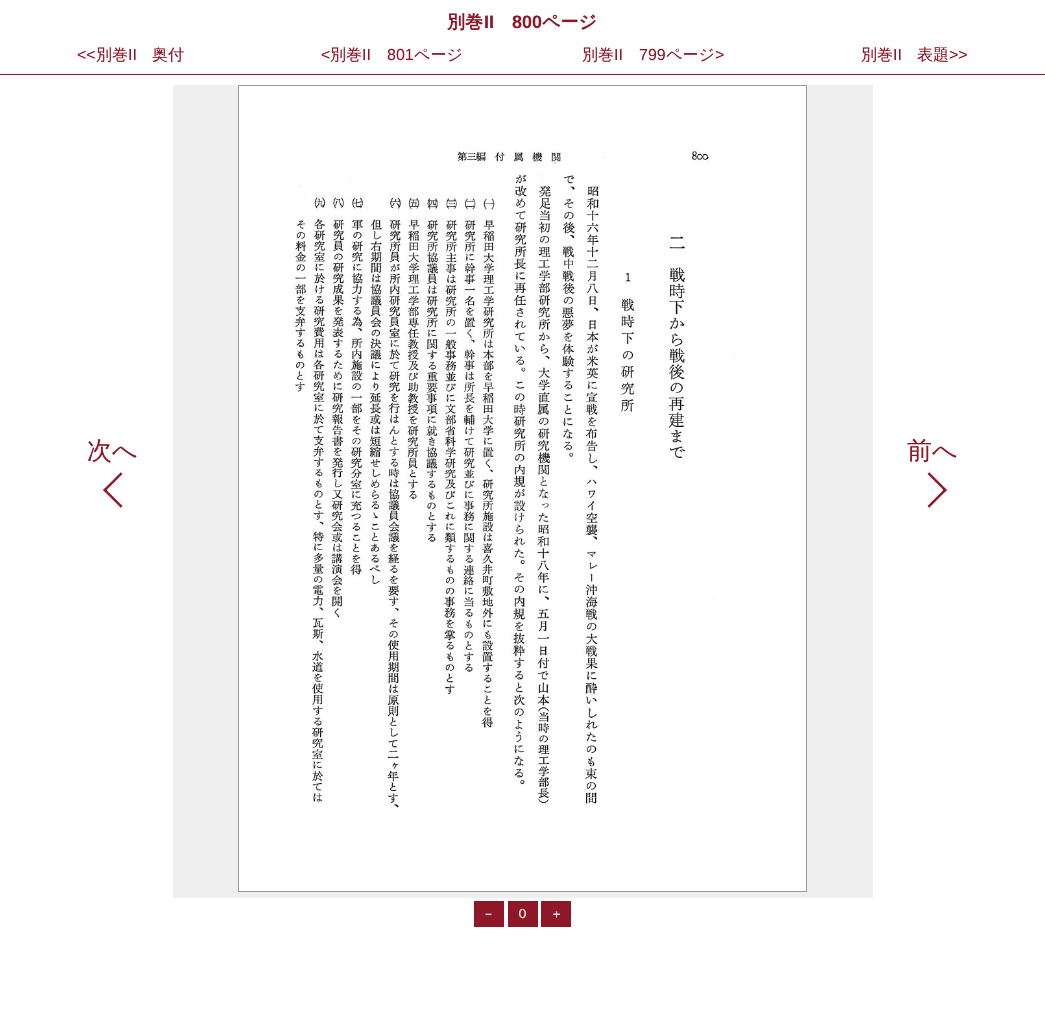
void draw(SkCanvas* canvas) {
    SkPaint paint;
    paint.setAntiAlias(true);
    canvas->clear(0xFFFFFFFF);
    SkFont font1(fontMgr->matchFamilyStyle("WenQuanYi Zen Hei", SkFontStyle::Bold()), 18);
    font1.setSubpixel(true);
    paint.setColor(0xFF8E1728);
    canvas->drawString("別巻", 447, 28, font1, paint);
    SkFont font2(fontMgr->matchFamilyStyle("Liberation Sans", SkFontStyle::Bold()), 18);
    font2.setSubpixel(true);
    canvas->drawString("II", 484, 28, font2, paint);
    canvas->drawString("800", 512, 28, font2, paint);
    canvas->drawString("ページ", 542, 28, font1, paint);
    canvas->drawRect(SkRect::MakeXYWH(0, 74, 1045, 1), paint);
    SkFont font3(fontMgr->matchFamilyStyle("Liberation Sans", SkFontStyle::Normal()), 16);
    font3.setSubpixel(true);
    canvas->drawString("<<", 77, 60, font3, paint);
    SkFont font4(fontMgr->matchFamilyStyle("WenQuanYi Zen Hei", SkFontStyle(500, SkFontStyle::kNormal_Width, SkFontStyle::kUpright_Slant)), 16);
    font4.setSubpixel(true);
    canvas->drawString("別巻", 96, 60, font4, paint);
    canvas->drawString("II", 128, 60, font3, paint);
    canvas->drawString("奥付", 152, 60, font4, paint);
    canvas->drawString("<", 321, 60, font3, paint);
    canvas->drawString("別巻", 330, 60, font4, paint);
    canvas->drawString("II", 362, 60, font3, paint);
    canvas->drawString("801", 387, 60, font3, paint);
    canvas->drawString("ページ", 414, 60, font4, paint);
    canvas->drawString("別巻", 582, 60, font4, paint);
    canvas->drawString("II", 614, 60, font3, paint);
    canvas->drawString("799", 639, 60, font3, paint);
    canvas->drawString("ページ", 666, 60, font4, paint);
    canvas->drawString(">", 715, 60, font3, paint);
    canvas->drawString("別巻", 861, 60, font4, paint);
    canvas->drawString("II", 893, 60, font3, paint);
    canvas->drawString("表題", 917, 60, font4, paint);
    canvas->drawString(">>", 949, 60, font3, paint);
    canvas->drawImageRect(SkImages::DeferredFromEncodedData(SkData::MakeFromFileName("img1.png")), SkRect::MakeXYWH(103, 472, 20, 36), SkSamplingOptions());
    SkFont font5(fontMgr->matchFamilyStyle("WenQuanYi Zen Hei", SkFontStyle(500, SkFontStyle::kNormal_Width, SkFontStyle::kUpright_Slant)), 25);
    font5.setSubpixel(true);
    canvas->drawString("次へ", 87, 459, font5, paint);
    paint.setColor(0xFFEFEFEF);
    canvas->drawRect(SkRect::MakeXYWH(173, 85, 700, 813), paint);
    paint.setStyle(SkPaint::kStroke_Style);
    paint.setStrokeWidth(1);
    paint.setColor(0xFF999999);
    canvas->drawRect(SkRect::MakeXYWH(238.5f, 85.5f, 568, 806), paint);
    canvas->drawImageRect(SkImages::DeferredFromEncodedData(SkData::MakeFromFileName("img2.png")), SkRect::MakeXYWH(239, 86, 567, 805), SkSamplingOptions());
    canvas->drawImageRect(SkImages::DeferredFromEncodedData(SkData::MakeFromFileName("img3.png")), SkRect::MakeXYWH(927, 472, 20, 36), SkSamplingOptions());
    paint.setStyle(SkPaint::kFill_Style);
    paint.setColor(0xFF8E1728);
    canvas->drawString("前へ", 907, 459, font5, paint);
    canvas->drawRect(SkRect::MakeXYWH(474, 901, 30, 26), paint);
    SkFont font6(fontMgr->matchFamilyStyle("WenQuanYi Zen Hei", SkFontStyle(500, SkFontStyle::kNormal_Width, SkFontStyle::kUpright_Slant)), 13);
    font6.setSubpixel(true);
    paint.setColor(0xFFFFFFFF);
    canvas->drawString("－", 482, 918, font6, paint);
    paint.setColor(0xFF8E1728);
    canvas->drawRect(SkRect::MakeXYWH(508, 901, 30, 26), paint);
    paint.setColor(0xFFFFFFFF);
    canvas->drawString("０", 516, 918, font6, paint);
    paint.setColor(0xFF8E1728);
    canvas->drawRect(SkRect::MakeXYWH(541, 901, 30, 26), paint);
    paint.setColor(0xFFFFFFFF);
    canvas->drawString("＋", 550, 918, font6, paint);
}
